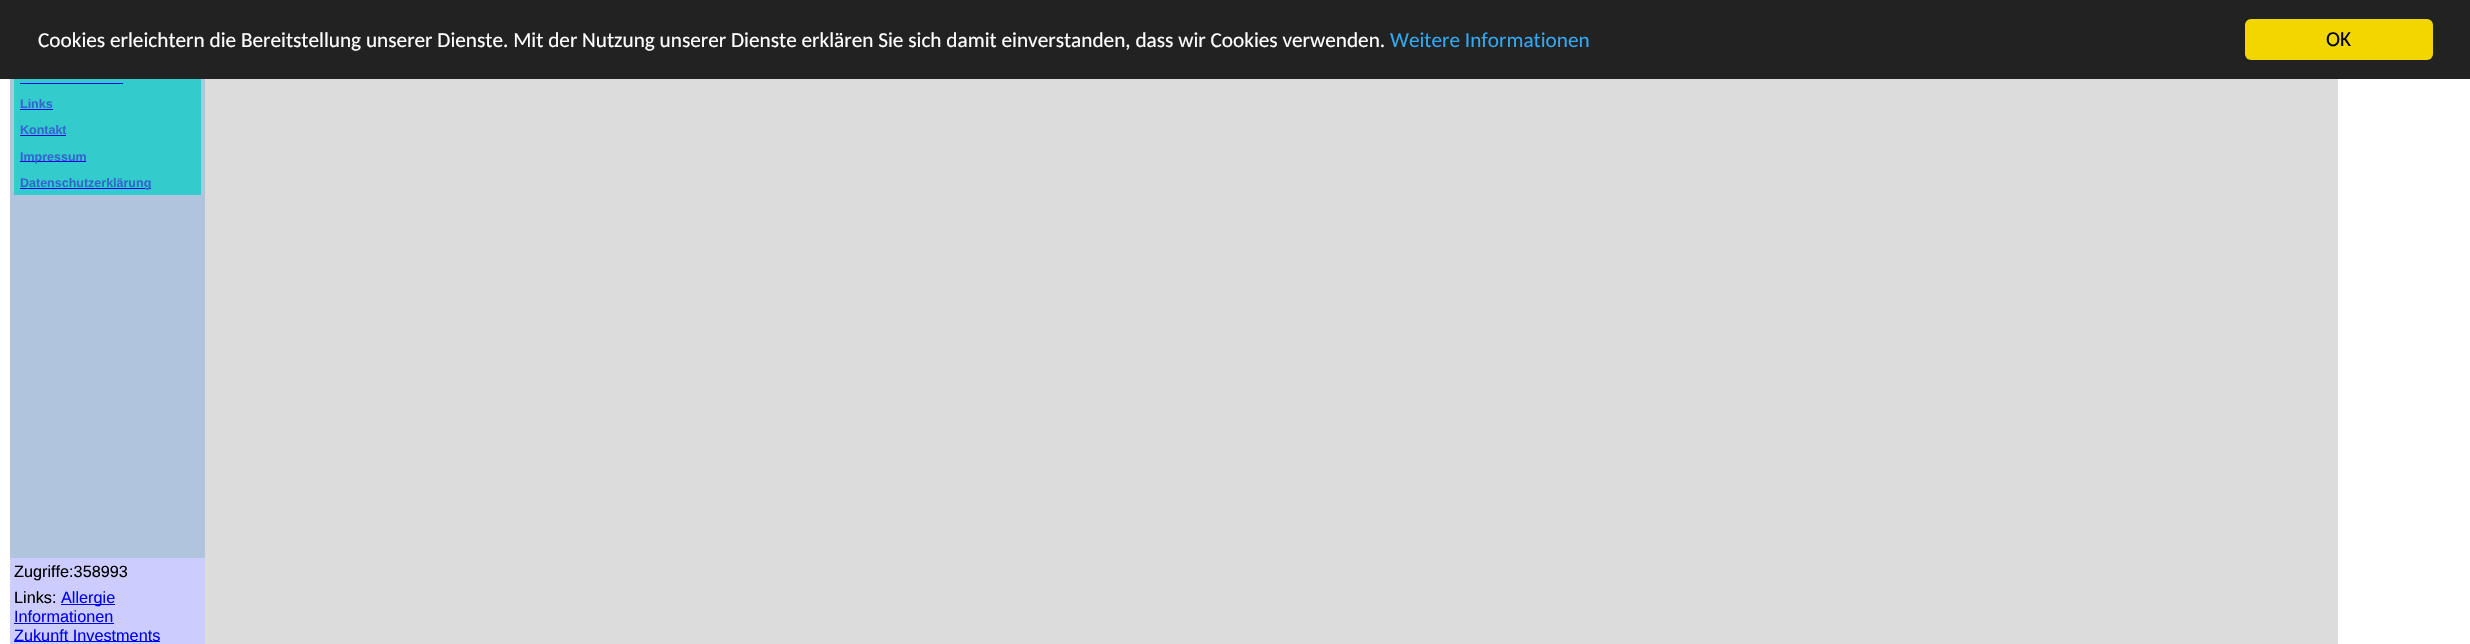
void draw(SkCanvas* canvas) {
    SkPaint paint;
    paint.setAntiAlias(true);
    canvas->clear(0xFFFFFFFF);
    paint.setColor(0xFF222222);
    canvas->drawRect(SkRect::MakeXYWH(0, 0, 2470, 79), paint);
    SkFont font1(fontMgr->matchFamilyStyle("Carlito", SkFontStyle::Normal()), 21.25f);
    font1.setSubpixel(true);
    paint.setColor(0xFFFFFFFF);
    canvas->drawString("Cookies erleichtern die Bereitstellung unserer Dienste. Mit der Nutzung unserer Dienste erklären Sie sich damit einverstanden, dass wir Cookies verwenden.", 38, 47, font1, paint);
    paint.setColor(0xFF31A8F0);
    canvas->drawString("Weitere Informationen", 1390, 47, font1, paint);
    paint.setColor(0xFFF1D600);
    canvas->drawRoundRect(SkRect::MakeXYWH(2245, 19, 188, 41), 6, 6, paint);
    paint.setColor(0xFF000000);
    canvas->drawString("OK", 2326, 46, font1, paint);
    paint.setColor(0xFFDCDCDC);
    canvas->drawRect(SkRect::MakeXYWH(205, 79, 2133, 565), paint);
    paint.setColor(0xFFB0C4DE);
    canvas->drawRect(SkRect::MakeXYWH(10, 79, 195, 479), paint);
    paint.setColor(0xFF33CCCC);
    canvas->drawRect(SkRect::MakeXYWH(14, 79, 187, 116), paint);
    paint.setColor(0xFF0000EE);
    canvas->drawRect(SkRect::MakeXYWH(20, 83, 103, 1), paint);
    SkFont font2(fontMgr->matchFamilyStyle("Liberation Sans", SkFontStyle::Bold()), 12.5f);
    font2.setSubpixel(true);
    paint.setColor(0xFF3366CC);
    canvas->drawString("Links", 20, 108, font2, paint);
    paint.setColor(0xFF0000EE);
    canvas->drawRect(SkRect::MakeXYWH(20, 109, 33, 1), paint);
    paint.setColor(0xFF3366CC);
    canvas->drawString("Kontakt", 20, 134, font2, paint);
    paint.setColor(0xFF0000EE);
    canvas->drawRect(SkRect::MakeXYWH(20, 135, 46, 1), paint);
    canvas->drawRect(SkRect::MakeXYWH(20, 161, 66, 1), paint);
    paint.setColor(0xFF3366CC);
    canvas->drawString("Impressum", 20, 161, font2, paint);
    paint.setColor(0xFF0000EE);
    canvas->drawRect(SkRect::MakeXYWH(20, 188, 131, 1), paint);
    paint.setColor(0xFF3366CC);
    canvas->drawString("Datenschutzerklärung", 20, 187, font2, paint);
    paint.setColor(0xFFCCCCFF);
    canvas->drawRect(SkRect::MakeXYWH(10, 558, 195, 86), paint);
    SkFont font3(fontMgr->matchFamilyStyle("Liberation Sans", SkFontStyle::Normal()), 16.25f);
    font3.setSubpixel(true);
    paint.setColor(0xFF000000);
    canvas->drawString("Zugriffe:358993", 14, 577, font3, paint);
    canvas->drawString("Links:", 14, 603, font3, paint);
    paint.setColor(0xFF0000EE);
    canvas->drawRect(SkRect::MakeXYWH(61, 604, 54, 1), paint);
    canvas->drawString("Allergie", 61, 603, font3, paint);
    canvas->drawString("Informationen", 14, 622, font3, paint);
    canvas->drawRect(SkRect::MakeXYWH(14, 623, 100, 1), paint);
    canvas->drawRect(SkRect::MakeXYWH(14, 641, 146, 1), paint);
    canvas->drawString("Zukunft Investments", 14, 641, font3, paint);
}
